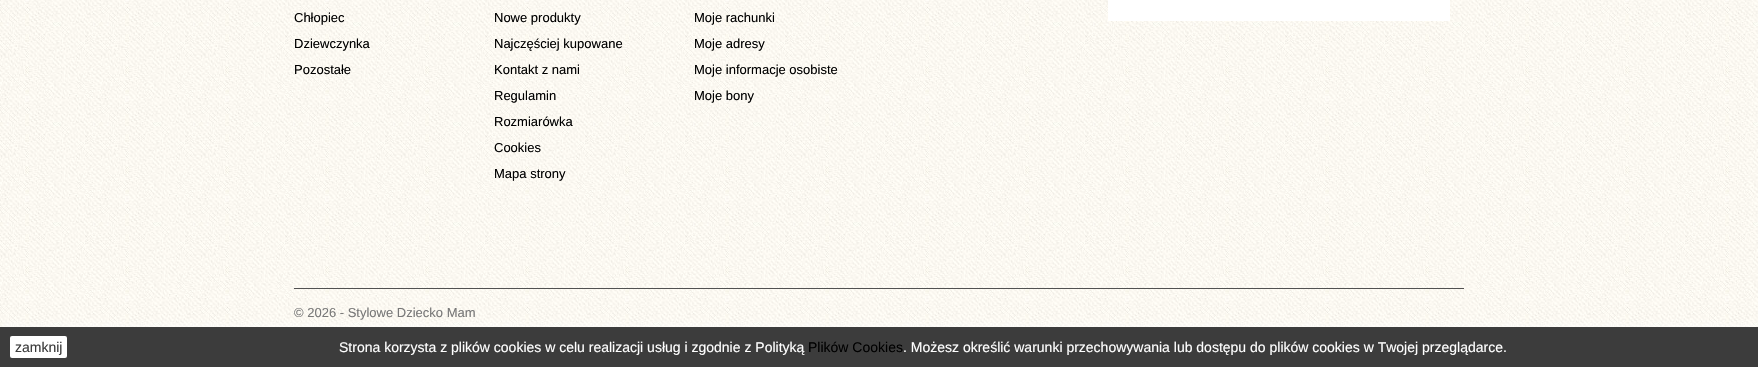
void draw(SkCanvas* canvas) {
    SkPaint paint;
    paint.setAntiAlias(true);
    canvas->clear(0xFFFFFFFF);
    canvas->drawImageRect(SkImages::DeferredFromEncodedData(SkData::MakeFromFileName("img1.png")), SkRect::MakeXYWH(0, 0, 1758, 327), SkSamplingOptions());
    SkFont font1(fontMgr->matchFamilyStyle("Liberation Sans", SkFontStyle::Normal()), 13);
    font1.setSubpixel(true);
    paint.setColor(0xFF000000);
    canvas->drawString("Chłopiec", 294, 22, font1, paint);
    canvas->drawString("Dziewczynka", 294, 48, font1, paint);
    canvas->drawString("Pozostałe", 294, 74, font1, paint);
    canvas->drawString("Nowe produkty", 494, 22, font1, paint);
    canvas->drawString("Najczęściej kupowane", 494, 48, font1, paint);
    canvas->drawString("Kontakt z nami", 494, 74, font1, paint);
    canvas->drawString("Regulamin", 494, 100, font1, paint);
    canvas->drawString("Rozmiarówka", 494, 126, font1, paint);
    canvas->drawString("Cookies", 494, 152, font1, paint);
    canvas->drawString("Mapa strony", 494, 178, font1, paint);
    canvas->drawString("Moje rachunki", 694, 22, font1, paint);
    canvas->drawString("Moje adresy", 694, 48, font1, paint);
    canvas->drawString("Moje informacje osobiste", 694, 74, font1, paint);
    canvas->drawString("Moje bony", 694, 100, font1, paint);
    paint.setColor(0xFFFFFFFF);
    canvas->drawRect(SkRect::MakeXYWH(1108, 0, 342, 21), paint);
    paint.setColor(0xFF515151);
    canvas->drawRect(SkRect::MakeXYWH(294, 288, 1170, 1), paint);
    paint.setColor(0xFF777777);
    canvas->drawString("© 2026 - Stylowe Dziecko Mam", 294, 317, font1, paint);
    paint.setColor(0xFFFFFFFF);
    paint.setMaskFilter(SkMaskFilter::MakeBlur(kNormal_SkBlurStyle, 5));
    canvas->drawRect(SkRect::MakeXYWH(0, 327, 1758, 40), paint);
    paint.setMaskFilter(nullptr);
    paint.setColor(0xFF3C3C3C);
    canvas->drawRect(SkRect::MakeXYWH(0, 327, 1758, 40), paint);
    paint.setColor(0xFFFFFFFF);
    canvas->drawRoundRect(SkRect::MakeXYWH(10, 336, 57, 22), 2, 2, paint);
    SkFont font2(fontMgr->matchFamilyStyle("Liberation Sans", SkFontStyle::Normal()), 14);
    font2.setSubpixel(true);
    paint.setColor(0xFF3C3C3C);
    canvas->drawString("zamknij", 15, 352, font2, paint);
    paint.setColor(0xFFFFFFFF);
    canvas->drawString("Strona korzysta z plików cookies w celu realizacji usług i zgodnie z Polityką", 339, 352, font2, paint);
    paint.setColor(0xFF000000);
    canvas->drawString("Plików Cookies", 808, 352, font2, paint);
    paint.setColor(0xFFFFFFFF);
    canvas->drawString(". Możesz określić warunki przechowywania lub dostępu do plików cookies w Twojej przeglądarce.", 903, 352, font2, paint);
}
